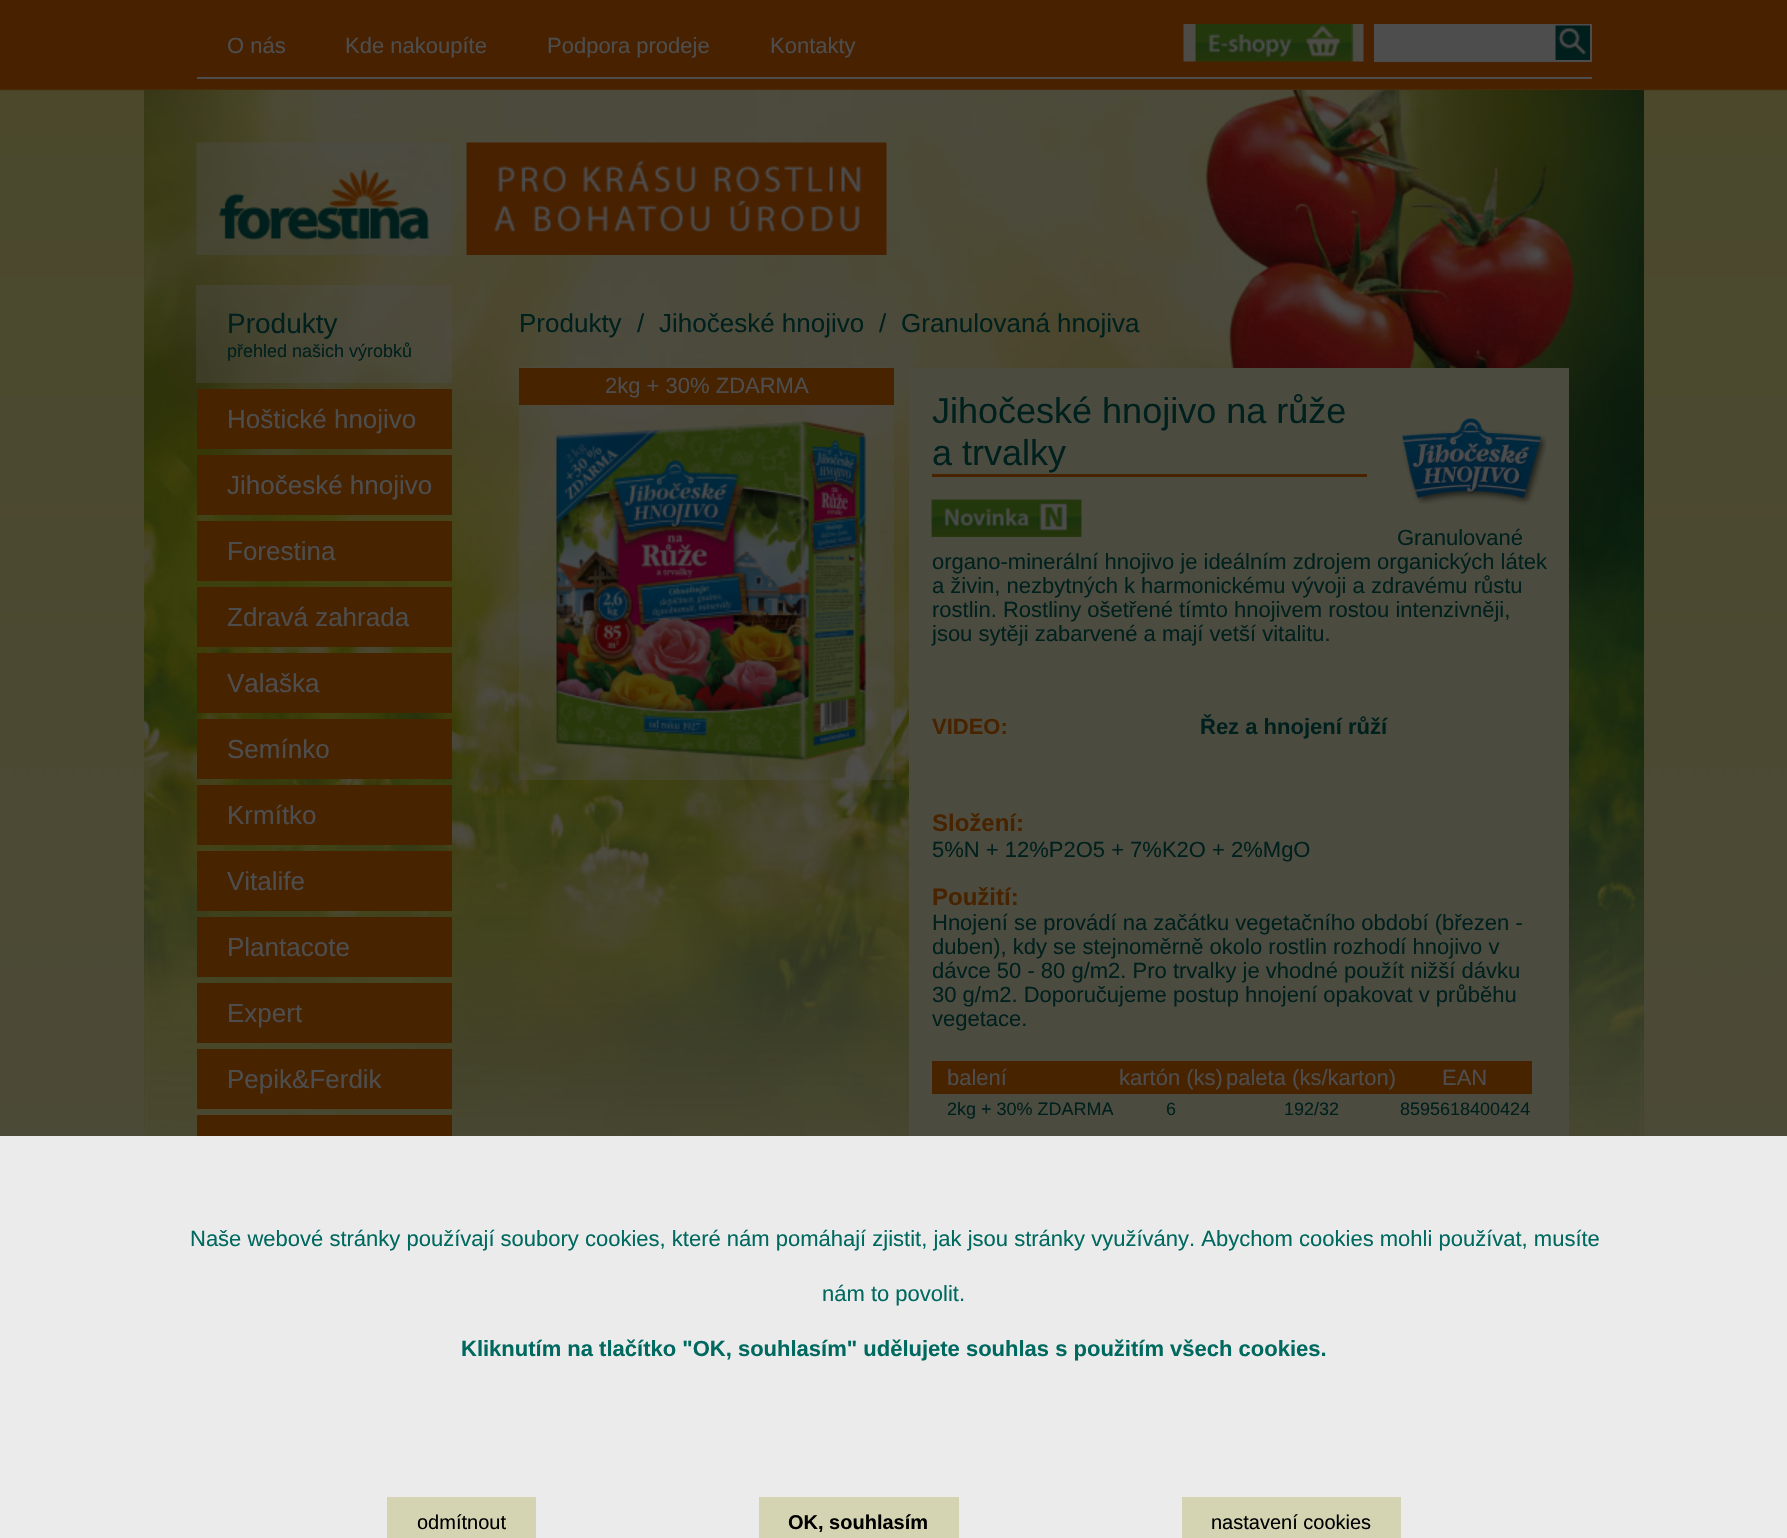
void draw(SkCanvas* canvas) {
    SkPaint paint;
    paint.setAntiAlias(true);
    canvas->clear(0xFFFFFFFF);
    canvas->drawImageRect(SkImages::DeferredFromEncodedData(SkData::MakeFromFileName("img1.png")), SkRect::MakeXYWH(0, 0, 1787, 1136), SkSamplingOptions());
    paint.setColor(0xFF4D4D4D);
    canvas->drawRect(SkRect::MakeXYWH(197, 77, 1395, 2), paint);
    SkFont font1(fontMgr->matchFamilyStyle("Liberation Sans", SkFontStyle::Normal()), 22);
    font1.setSubpixel(true);
    canvas->drawString("O nás", 227, 53, font1, paint);
    canvas->drawString("Kde nakoupíte", 345, 53, font1, paint);
    canvas->drawString("Podpora prodeje", 547, 53, font1, paint);
    canvas->drawString("Kontakty", 770, 53, font1, paint);
    canvas->drawImageRect(SkImages::DeferredFromEncodedData(SkData::MakeFromFileName("img2.png")), SkRect::MakeXYWH(1183, 24, 181, 38), SkSamplingOptions());
    paint.setStyle(SkPaint::kStroke_Style);
    paint.setStrokeWidth(2);
    canvas->drawRect(SkRect::MakeXYWH(1375, 25, 216, 36), paint);
    paint.setStyle(SkPaint::kFill_Style);
    canvas->drawRect(SkRect::MakeXYWH(1376, 26, 180, 34), paint);
    canvas->drawImageRect(SkImages::DeferredFromEncodedData(SkData::MakeFromFileName("img3.png")), SkRect::MakeXYWH(1555, 25, 35, 35), SkSamplingOptions());
    canvas->drawImageRect(SkImages::DeferredFromEncodedData(SkData::MakeFromFileName("img4.png")), SkRect::MakeXYWH(144, 90, 1500, 1046), SkSamplingOptions());
    canvas->drawImageRect(SkImages::DeferredFromEncodedData(SkData::MakeFromFileName("img5.png")), SkRect::MakeXYWH(196, 142, 256, 113), SkSamplingOptions());
    canvas->drawImageRect(SkImages::DeferredFromEncodedData(SkData::MakeFromFileName("img6.png")), SkRect::MakeXYWH(466, 142, 421, 113), SkSamplingOptions());
    paint.setColor(0x594D4D4D);
    canvas->drawRect(SkRect::MakeXYWH(196, 285, 256, 98), paint);
    SkFont font2(fontMgr->matchFamilyStyle("Liberation Sans", SkFontStyle::Normal()), 28);
    font2.setSubpixel(true);
    paint.setColor(0xFF00201D);
    canvas->drawString("Produkty", 227, 333, font2, paint);
    SkFont font3(fontMgr->matchFamilyStyle("Liberation Sans", SkFontStyle::Normal()), 18);
    font3.setSubpixel(true);
    canvas->drawString("přehled našich výrobků", 227, 357, font3, paint);
    paint.setColor(0xFF482300);
    canvas->drawRect(SkRect::MakeXYWH(197, 389, 255, 60), paint);
    SkFont font4(fontMgr->matchFamilyStyle("Liberation Sans", SkFontStyle::Normal()), 26);
    font4.setSubpixel(true);
    paint.setColor(0xFF4D4D4D);
    canvas->drawString("Hoštické hnojivo", 227, 428, font4, paint);
    paint.setColor(0xFF482300);
    canvas->drawRect(SkRect::MakeXYWH(197, 455, 255, 60), paint);
    paint.setColor(0xFF4D4D4D);
    canvas->drawString("Jihočeské hnojivo", 227, 494, font4, paint);
    paint.setColor(0xFF482300);
    canvas->drawRect(SkRect::MakeXYWH(197, 521, 255, 60), paint);
    paint.setColor(0xFF4D4D4D);
    canvas->drawString("Forestina", 227, 560, font4, paint);
    paint.setColor(0xFF482300);
    canvas->drawRect(SkRect::MakeXYWH(197, 587, 255, 60), paint);
    paint.setColor(0xFF4D4D4D);
    canvas->drawString("Zdravá zahrada", 227, 626, font4, paint);
    paint.setColor(0xFF482300);
    canvas->drawRect(SkRect::MakeXYWH(197, 653, 255, 60), paint);
    paint.setColor(0xFF4D4D4D);
    canvas->drawString("Valaška", 227, 692, font4, paint);
    paint.setColor(0xFF482300);
    canvas->drawRect(SkRect::MakeXYWH(197, 719, 255, 60), paint);
    paint.setColor(0xFF4D4D4D);
    canvas->drawString("Semínko", 227, 758, font4, paint);
    paint.setColor(0xFF482300);
    canvas->drawRect(SkRect::MakeXYWH(197, 785, 255, 60), paint);
    paint.setColor(0xFF4D4D4D);
    canvas->drawString("Krmítko", 227, 824, font4, paint);
    paint.setColor(0xFF482300);
    canvas->drawRect(SkRect::MakeXYWH(197, 851, 255, 60), paint);
    paint.setColor(0xFF4D4D4D);
    canvas->drawString("Vitalife", 227, 890, font4, paint);
    paint.setColor(0xFF482300);
    canvas->drawRect(SkRect::MakeXYWH(197, 917, 255, 60), paint);
    paint.setColor(0xFF4D4D4D);
    canvas->drawString("Plantacote", 227, 956, font4, paint);
    paint.setColor(0xFF482300);
    canvas->drawRect(SkRect::MakeXYWH(197, 983, 255, 60), paint);
    paint.setColor(0xFF4D4D4D);
    canvas->drawString("Expert", 227, 1022, font4, paint);
    paint.setColor(0xFF482300);
    canvas->drawRect(SkRect::MakeXYWH(197, 1049, 255, 60), paint);
    paint.setColor(0xFF4D4D4D);
    canvas->drawString("Pepik&Ferdik", 227, 1088, font4, paint);
    paint.setColor(0xFF482300);
    canvas->drawRect(SkRect::MakeXYWH(197, 1115, 255, 21), paint);
    paint.setColor(0xFF00201D);
    canvas->drawString("Produkty", 519, 332, font4, paint);
    canvas->drawString("/", 637, 332, font4, paint);
    canvas->drawString("Jihočeské hnojivo", 659, 332, font4, paint);
    canvas->drawString("/", 879, 332, font4, paint);
    canvas->drawString("Granulovaná hnojiva", 901, 332, font4, paint);
    paint.setColor(0x594D4D4D);
    canvas->drawRect(SkRect::MakeXYWH(519, 367, 375, 413), paint);
    paint.setColor(0xFF482300);
    canvas->drawRect(SkRect::MakeXYWH(519, 368, 375, 37), paint);
    paint.setColor(0xFF4D4D4D);
    canvas->drawString("2kg + 30% ZDARMA", 605, 393, font1, paint);
    canvas->drawImageRect(SkImages::DeferredFromEncodedData(SkData::MakeFromFileName("img7.png")), SkRect::MakeXYWH(556, 421, 310, 340), SkSamplingOptions());
    paint.setColor(0xFF4C4B40);
    canvas->drawRect(SkRect::MakeXYWH(909, 368, 660, 768), paint);
    paint.setColor(0xFF482300);
    canvas->drawRect(SkRect::MakeXYWH(932, 474, 435, 3), paint);
    SkFont font5(fontMgr->matchFamilyStyle("Liberation Sans", SkFontStyle::Normal()), 36);
    font5.setSubpixel(true);
    paint.setColor(0xFF00201D);
    canvas->drawString("Jihočeské hnojivo na růže", 932, 423, font5, paint);
    canvas->drawString("a trvalky", 932, 465, font5, paint);
    canvas->drawImageRect(SkImages::DeferredFromEncodedData(SkData::MakeFromFileName("img8.png")), SkRect::MakeXYWH(931, 499, 151, 38), SkSamplingOptions());
    canvas->drawImageRect(SkImages::DeferredFromEncodedData(SkData::MakeFromFileName("img9.png")), SkRect::MakeXYWH(1401, 418, 146, 87), SkSamplingOptions());
    canvas->drawString("Granulované", 1397, 545, font1, paint);
    canvas->drawString("organo-minerální hnojivo je ideálním zdrojem organických látek", 932, 569, font1, paint);
    canvas->drawString("a živin, nezbytných k harmonickému vývoji a zdravému růstu", 932, 593, font1, paint);
    canvas->drawString("rostlin. Rostliny ošetřené tímto hnojivem rostou intenzivněji,", 932, 617, font1, paint);
    canvas->drawString("jsou sytěji zabarvené a mají vetší vitalitu.", 932, 641, font1, paint);
    SkFont font6(fontMgr->matchFamilyStyle("Liberation Sans", SkFontStyle::Bold()), 22);
    font6.setSubpixel(true);
    paint.setColor(0xFF482300);
    canvas->drawString("VIDEO:", 932, 734, font6, paint);
    paint.setColor(0xFF00201D);
    canvas->drawString("Řez a hnojení růží", 1200, 734, font6, paint);
    SkFont font7(fontMgr->matchFamilyStyle("Liberation Sans", SkFontStyle::Bold()), 24);
    font7.setSubpixel(true);
    paint.setColor(0xFF482300);
    canvas->drawString("Složení:", 932, 831, font7, paint);
    paint.setColor(0xFF00201D);
    canvas->drawString("5%N + 12%P2O5 + 7%K2O + 2%MgO", 932, 857, font1, paint);
    paint.setColor(0xFF482300);
    canvas->drawString("Použití:", 932, 905, font7, paint);
    paint.setColor(0xFF00201D);
    canvas->drawString("Hnojení se provádí na začátku vegetačního období (březen -", 932, 930, font1, paint);
    canvas->drawString("duben), kdy se stejnoměrně okolo rostlin rozhodí hnojivo v", 932, 954, font1, paint);
    canvas->drawString("dávce 50 - 80 g/m2. Pro trvalky je vhodné použít nižší dávku", 932, 978, font1, paint);
    canvas->drawString("30 g/m2. Doporučujeme postup hnojení opakovat v průběhu", 932, 1002, font1, paint);
    canvas->drawString("vegetace.", 932, 1026, font1, paint);
    paint.setColor(0xFF482300);
    canvas->drawRect(SkRect::MakeXYWH(932, 1061, 600, 33), paint);
    paint.setColor(0xFF4D4D4D);
    canvas->drawString("balení", 947, 1085, font1, paint);
    canvas->drawString("kartón (ks)", 1119, 1085, font1, paint);
    canvas->drawString("paleta (ks/karton)", 1226, 1085, font1, paint);
    canvas->drawString("EAN", 1442, 1085, font1, paint);
    paint.setColor(0xFF00201D);
    canvas->drawString("2kg + 30% ZDARMA", 947, 1115, font3, paint);
    canvas->drawString("6", 1166, 1115, font3, paint);
    canvas->drawString("192/32", 1284, 1115, font3, paint);
    canvas->drawString("8595618400424", 1400, 1115, font3, paint);
    paint.setColor(0xFFEBEBEB);
    canvas->drawRect(SkRect::MakeXYWH(0, 1136, 1787, 402), paint);
    paint.setColor(0xFF00695F);
    canvas->drawString("Naše webové stránky používají soubory cookies, které nám pomáhají zjistit, jak jsou stránky využívány. Abychom cookies mohli používat, musíte", 190, 1246, font1, paint);
    canvas->drawString("nám to povolit.", 822, 1301, font1, paint);
    canvas->drawString("Kliknutím na tlačítko \"OK, souhlasím\" udělujete souhlas s použitím všech cookies.", 461, 1356, font6, paint);
    paint.setColor(0xFFD4D4B3);
    canvas->drawRect(SkRect::MakeXYWH(387, 1497, 149, 41), paint);
    SkFont font8(fontMgr->matchFamilyStyle("Liberation Sans", SkFontStyle::Normal()), 20);
    font8.setSubpixel(true);
    paint.setColor(0xFF000000);
    canvas->drawString("odmítnout", 417, 1529, font8, paint);
    paint.setColor(0xFFD4D4B3);
    canvas->drawRect(SkRect::MakeXYWH(759, 1497, 200, 41), paint);
    SkFont font9(fontMgr->matchFamilyStyle("Liberation Sans", SkFontStyle::Bold()), 20);
    font9.setSubpixel(true);
    paint.setColor(0xFF000000);
    canvas->drawString("OK, souhlasím", 788, 1529, font9, paint);
    paint.setColor(0xFFD4D4B3);
    canvas->drawRect(SkRect::MakeXYWH(1182, 1497, 219, 41), paint);
    paint.setColor(0xFF000000);
    canvas->drawString("nastavení cookies", 1211, 1529, font8, paint);
}
